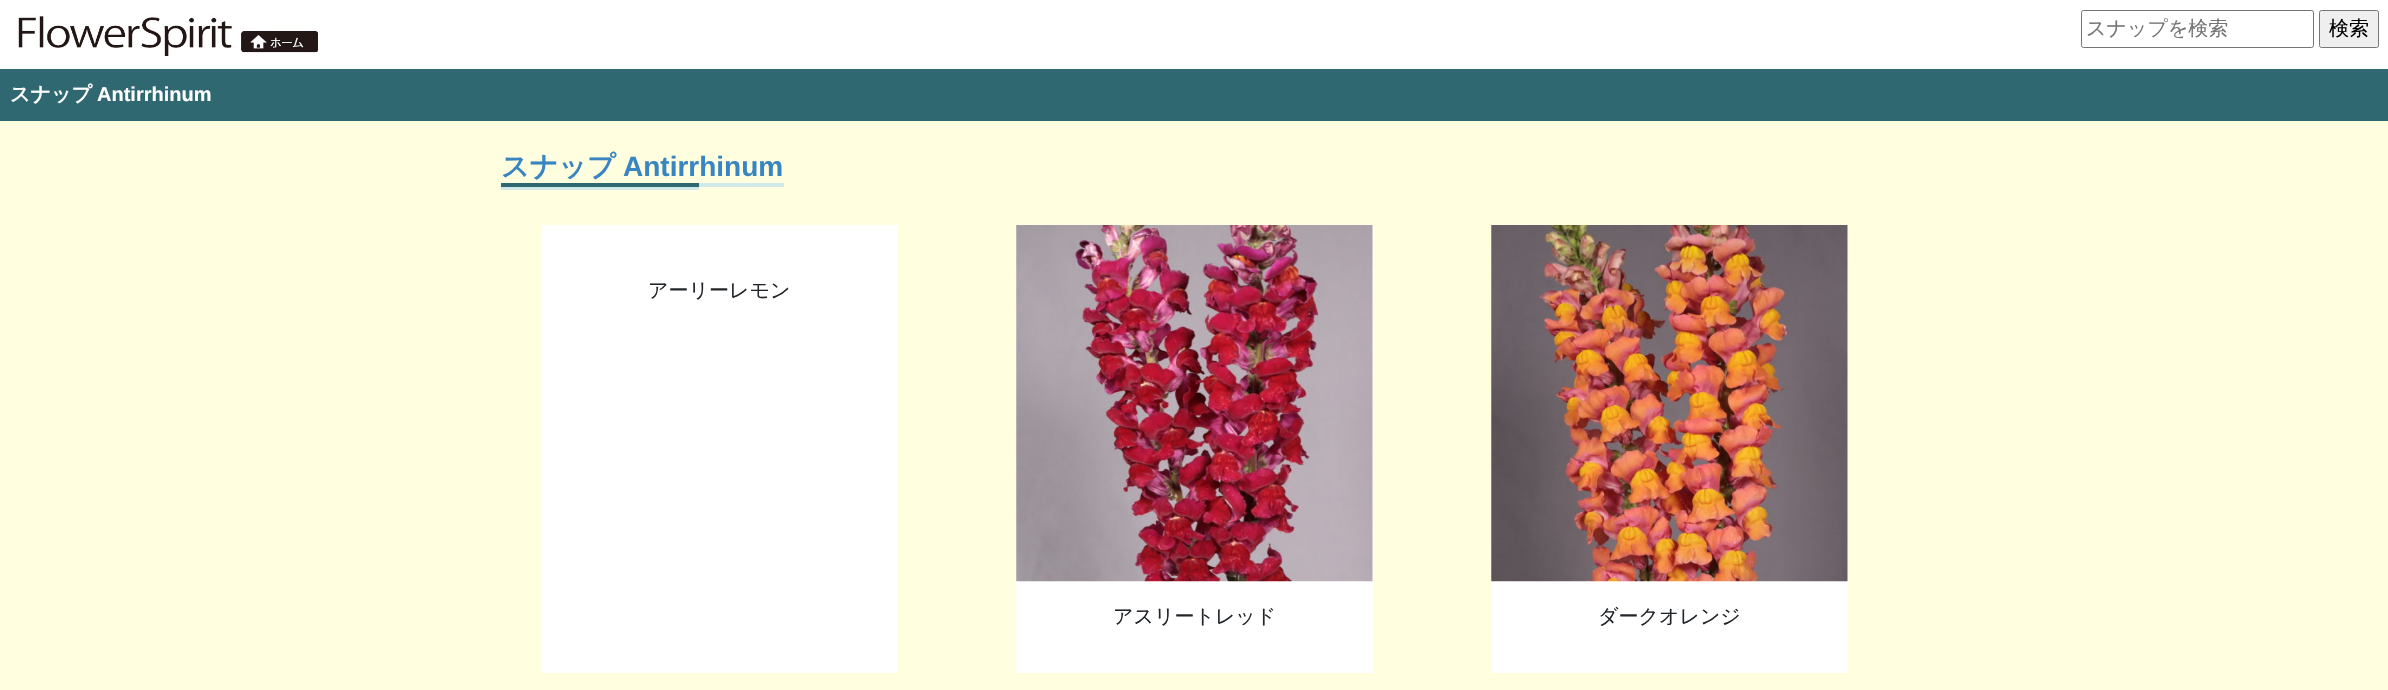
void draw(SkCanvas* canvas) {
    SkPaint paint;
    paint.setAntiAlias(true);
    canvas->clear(0xFFFFFFFF);
    canvas->drawImageRect(SkImages::DeferredFromEncodedData(SkData::MakeFromFileName("img1.png")), SkRect::MakeXYWH(18, 14, 300, 42), SkSamplingOptions());
    paint.setStyle(SkPaint::kStroke_Style);
    paint.setStrokeWidth(1);
    paint.setColor(0xFF767676);
    canvas->drawRoundRect(SkRect::MakeXYWH(2081.5f, 10.5f, 232, 37), 2, 2, paint);
    SkFont font1(fontMgr->matchFamilyStyle("WenQuanYi Zen Hei", SkFontStyle(500, SkFontStyle::kNormal_Width, SkFontStyle::kUpright_Slant)), 20);
    font1.setSubpixel(true);
    paint.setStyle(SkPaint::kFill_Style);
    paint.setColor(0xFF757575);
    canvas->drawString("スナップを検索", 2086, 35, font1, paint);
    paint.setColor(0xFFEFEFEF);
    canvas->drawRoundRect(SkRect::MakeXYWH(2319.5f, 10.5f, 59, 37), 2, 2, paint);
    paint.setStyle(SkPaint::kStroke_Style);
    paint.setColor(0xFF767676);
    canvas->drawRoundRect(SkRect::MakeXYWH(2319.5f, 10.5f, 59, 37), 2, 2, paint);
    paint.setStyle(SkPaint::kFill_Style);
    paint.setColor(0xFF000000);
    canvas->drawString("検索", 2329, 35, font1, paint);
    paint.setColor(0xFF2F6870);
    canvas->drawRect(SkRect::MakeXYWH(0, 69, 2388, 52), paint);
    SkFont font2(fontMgr->matchFamilyStyle("WenQuanYi Zen Hei", SkFontStyle::Bold()), 20);
    font2.setSubpixel(true);
    paint.setColor(0xFFFFFFFF);
    canvas->drawString("スナップ", 10, 101, font2, paint);
    SkFont font3(fontMgr->matchFamilyStyle("Liberation Sans", SkFontStyle::Bold()), 20);
    font3.setSubpixel(true);
    canvas->drawString("Antirrhinum", 97, 101, font3, paint);
    paint.setColor(0xFFFFFFE0);
    canvas->drawRect(SkRect::MakeXYWH(0, 121, 2388, 569), paint);
    paint.setColor(0xFFD2E9EC);
    canvas->drawRect(SkRect::MakeXYWH(699, 183, 85, 4), paint);
    canvas->drawRect(SkRect::MakeXYWH(501, 187, 198, 3), paint);
    SkFont font4(fontMgr->matchFamilyStyle("WenQuanYi Zen Hei", SkFontStyle::Bold()), 28);
    font4.setSubpixel(true);
    paint.setColor(0xFF3985C2);
    canvas->drawString("スナップ", 501, 176, font4, paint);
    SkFont font5(fontMgr->matchFamilyStyle("Liberation Sans", SkFontStyle::Bold()), 28);
    font5.setSubpixel(true);
    canvas->drawString("Antirrhinum", 623, 176, font5, paint);
    paint.setColor(0xFF2F6870);
    canvas->drawRect(SkRect::MakeXYWH(501, 183, 198, 4), paint);
    paint.setColor(0xFFFFFFFF);
    canvas->drawRect(SkRect::MakeXYWH(541, 225, 357, 448), paint);
    paint.setColor(0xFF212529);
    canvas->drawString("アーリーレモン", 648, 297, font1, paint);
    paint.setColor(0xFFFFFFFF);
    canvas->drawRect(SkRect::MakeXYWH(1016, 225, 357, 448), paint);
    canvas->drawImageRect(SkImages::DeferredFromEncodedData(SkData::MakeFromFileName("img2.png")), SkRect::MakeXYWH(1016, 225, 357, 357), SkSamplingOptions());
    paint.setColor(0xFF212529);
    canvas->drawString("アスリートレッド", 1113, 623, font1, paint);
    paint.setColor(0xFFFFFFFF);
    canvas->drawRect(SkRect::MakeXYWH(1491, 225, 357, 448), paint);
    canvas->drawImageRect(SkImages::DeferredFromEncodedData(SkData::MakeFromFileName("img3.png")), SkRect::MakeXYWH(1491, 225, 357, 357), SkSamplingOptions());
    paint.setColor(0xFF212529);
    canvas->drawString("ダークオレンジ", 1598, 623, font1, paint);
}
